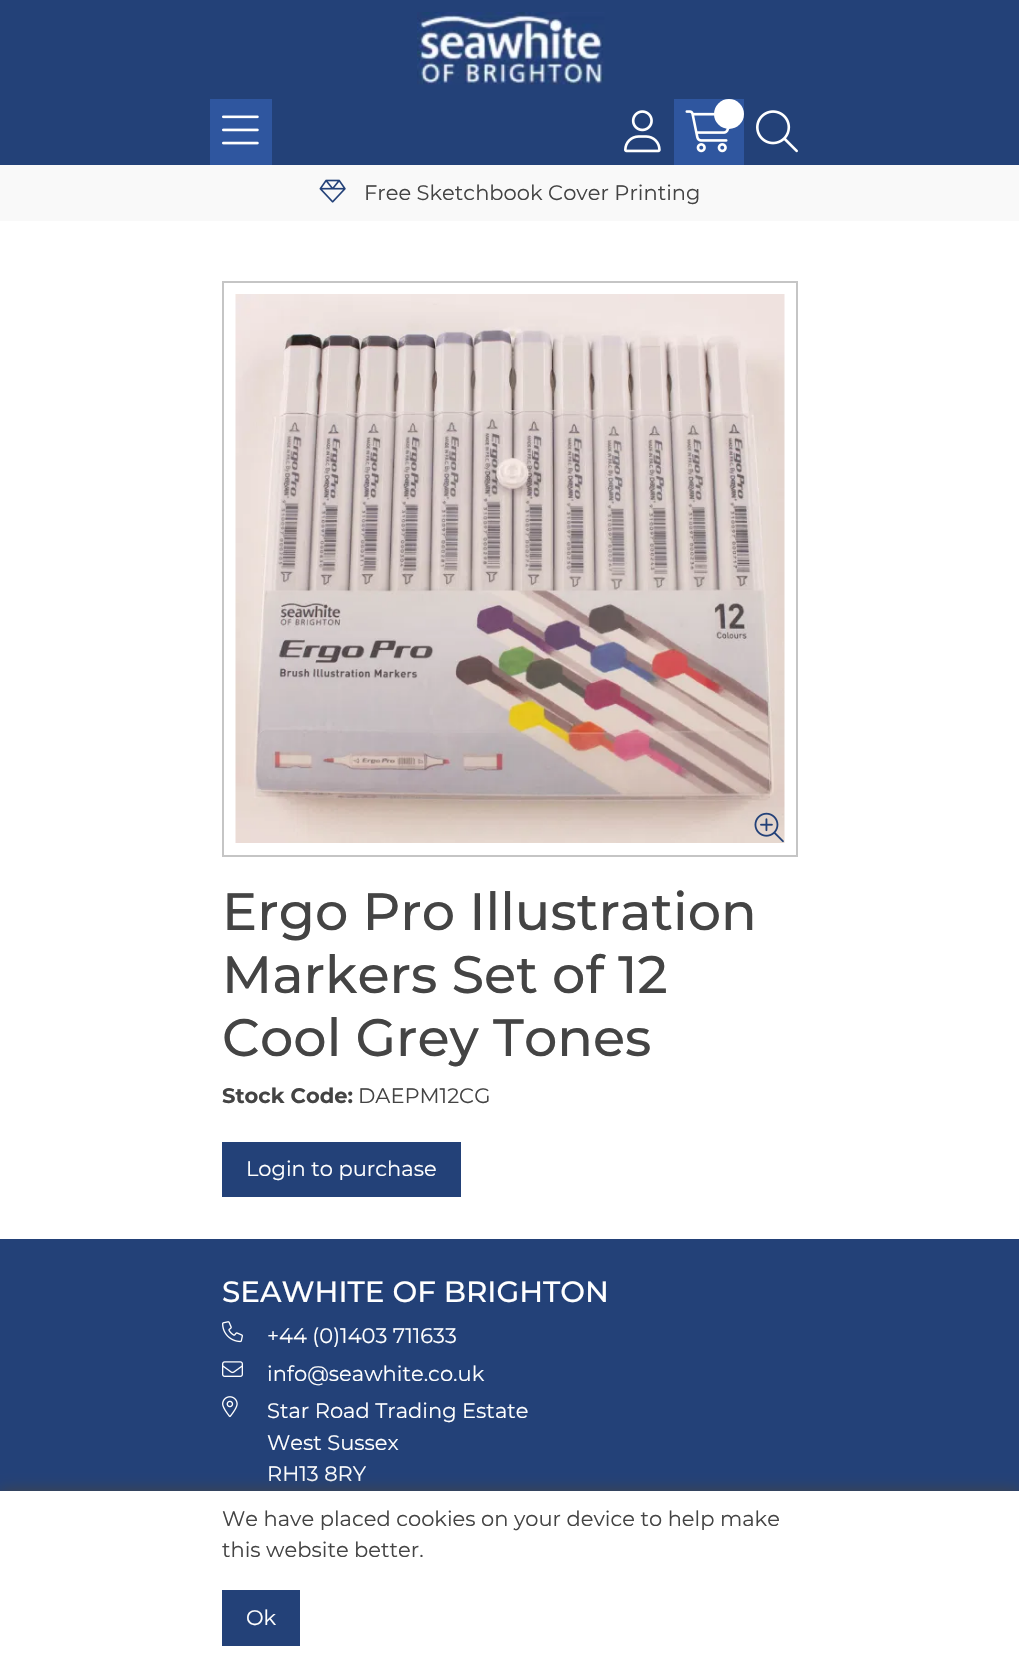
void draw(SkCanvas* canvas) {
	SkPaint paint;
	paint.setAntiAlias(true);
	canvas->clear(0xffffffff);
	paint.setColor(0xff234178);
	canvas->drawRect(SkRect::MakeXYWH(0, 0, 1019, 165), paint);
	canvas->drawImageRect(SkImages::DeferredFromEncodedData(SkData::MakeFromFileName("img1.png")), SkRect::MakeXYWH(417, 12, 188, 73), SkSamplingOptions());
	paint.setColor(0xff2f569f);
	canvas->drawRect(SkRect::MakeXYWH(210, 99, 62, 66), paint);
	canvas->drawImageRect(SkImages::DeferredFromEncodedData(SkData::MakeFromFileName("img2.png")), SkRect::MakeXYWH(222, 115, 37, 30), SkSamplingOptions());
	canvas->drawImageRect(SkImages::DeferredFromEncodedData(SkData::MakeFromFileName("img3.png")), SkRect::MakeXYWH(624, 110, 37, 43), SkSamplingOptions());
	canvas->drawRect(SkRect::MakeXYWH(674, 99, 70, 66), paint);
	canvas->drawImageRect(SkImages::DeferredFromEncodedData(SkData::MakeFromFileName("img4.png")), SkRect::MakeXYWH(685, 110, 45, 43), SkSamplingOptions());
	paint.setColor(0xffffffff);
	canvas->drawCircle(729, 114, 15, paint);
	canvas->drawImageRect(SkImages::DeferredFromEncodedData(SkData::MakeFromFileName("img5.png")), SkRect::MakeXYWH(756, 110, 42, 43), SkSamplingOptions());
	paint.setColor(0xfff9f9f9);
	canvas->drawRect(SkRect::MakeXYWH(0, 165, 1019, 56), paint);
	canvas->drawImageRect(SkImages::DeferredFromEncodedData(SkData::MakeFromFileName("img6.png")), SkRect::MakeXYWH(319, 179, 27, 24), SkSamplingOptions());
	SkFont f1(fontMgr->matchFamilyStyle("Montserrat", SkFontStyle(100, SkFontStyle::kNormal_Width, SkFontStyle::kUpright_Slant)), 21);
	f1.setSubpixel(true);
	paint.setColor(0xff444444);
	canvas->drawString("Free Sketchbook Cover Printing", 364, 200, f1, paint);
	paint.setStroke(true);
	paint.setStrokeWidth(2);
	paint.setColor(0xffc5c5c5);
	canvas->drawRect(SkRect::MakeXYWH(223, 282, 574, 574), paint);
	canvas->drawImageRect(SkImages::DeferredFromEncodedData(SkData::MakeFromFileName("img7.png")), SkRect::MakeXYWH(235, 294, 550, 549), SkSamplingOptions());
	canvas->drawImageRect(SkImages::DeferredFromEncodedData(SkData::MakeFromFileName("img8.png")), SkRect::MakeXYWH(754, 812, 30, 31), SkSamplingOptions());
	SkFont f2(fontMgr->matchFamilyStyle("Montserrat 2", SkFontStyle(100, SkFontStyle::kNormal_Width, SkFontStyle::kUpright_Slant)), 52.5);
	f2.setSubpixel(true);
	paint.setStroke(false);
	paint.setColor(0xff444444);
	canvas->drawString("Ergo Pro Illustration", 222, 930, f2, paint);
	canvas->drawString("Markers Set of 12", 222, 993, f2, paint);
	canvas->drawString("Cool Grey Tones", 222, 1056, f2, paint);
	SkFont f3(fontMgr->matchFamilyStyle("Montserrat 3", SkFontStyle(100, SkFontStyle::kNormal_Width, SkFontStyle::kUpright_Slant)), 21);
	f3.setSubpixel(true);
	canvas->drawString("Stock Code:", 222, 1103, f3, paint);
	canvas->drawString("DAEPM12CG", 358, 1103, f1, paint);
	paint.setColor(0xff234178);
	canvas->drawRect(SkRect::MakeXYWH(222, 1142, 239, 55), paint);
	paint.setColor(0xffffffff);
	canvas->drawString("Login to purchase", 246, 1176, f1, paint);
	paint.setColor(0xff234178);
	canvas->drawRect(SkRect::MakeXYWH(0, 1239, 1019, 252), paint);
	SkFont f4(fontMgr->matchFamilyStyle("Montserrat 2", SkFontStyle(100, SkFontStyle::kNormal_Width, SkFontStyle::kUpright_Slant)), 29.4);
	f4.setSubpixel(true);
	paint.setColor(0xffffffff);
	canvas->drawString("SEAWHITE OF BRIGHTON", 222, 1302, f4, paint);
	canvas->drawImageRect(SkImages::DeferredFromEncodedData(SkData::MakeFromFileName("img9.png")), SkRect::MakeXYWH(222, 1321, 21, 22), SkSamplingOptions());
	canvas->drawString("+44 (0)1403 711633", 267, 1343, f1, paint);
	canvas->drawImageRect(SkImages::DeferredFromEncodedData(SkData::MakeFromFileName("img10.png")), SkRect::MakeXYWH(222, 1361, 21, 16), SkSamplingOptions());
	canvas->drawString("info@seawhite.co.uk", 267, 1381, f1, paint);
	canvas->drawImageRect(SkImages::DeferredFromEncodedData(SkData::MakeFromFileName("img11.png")), SkRect::MakeXYWH(222, 1396, 16, 22), SkSamplingOptions());
	canvas->drawString("Star Road Trading Estate", 267, 1418, f1, paint);
	canvas->drawString("West Sussex", 267, 1450, f1, paint);
	canvas->drawString("RH13 8RY", 267, 1481, f1, paint);
	paint.setColor(0xff444444);
	paint.setMaskFilter(SkMaskFilter::MakeBlur(kNormal_SkBlurStyle, 7.5));
	canvas->drawRect(SkRect::MakeXYWH(0, 1491, 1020, 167), paint);
	paint.setMaskFilter(nullptr);
	paint.setColor(0xffffffff);
	canvas->drawRect(SkRect::MakeXYWH(0, 1491, 1019, 166), paint);
	paint.setColor(0xff444444);
	canvas->drawString("We have placed cookies on your device to help make", 222, 1526, f1, paint);
	canvas->drawString("this website better.", 222, 1557, f1, paint);
	paint.setColor(0xff234178);
	canvas->drawRect(SkRect::MakeXYWH(222, 1590, 78, 56), paint);
	paint.setColor(0xffffffff);
	canvas->drawString("Ok", 246, 1625, f1, paint);
}
